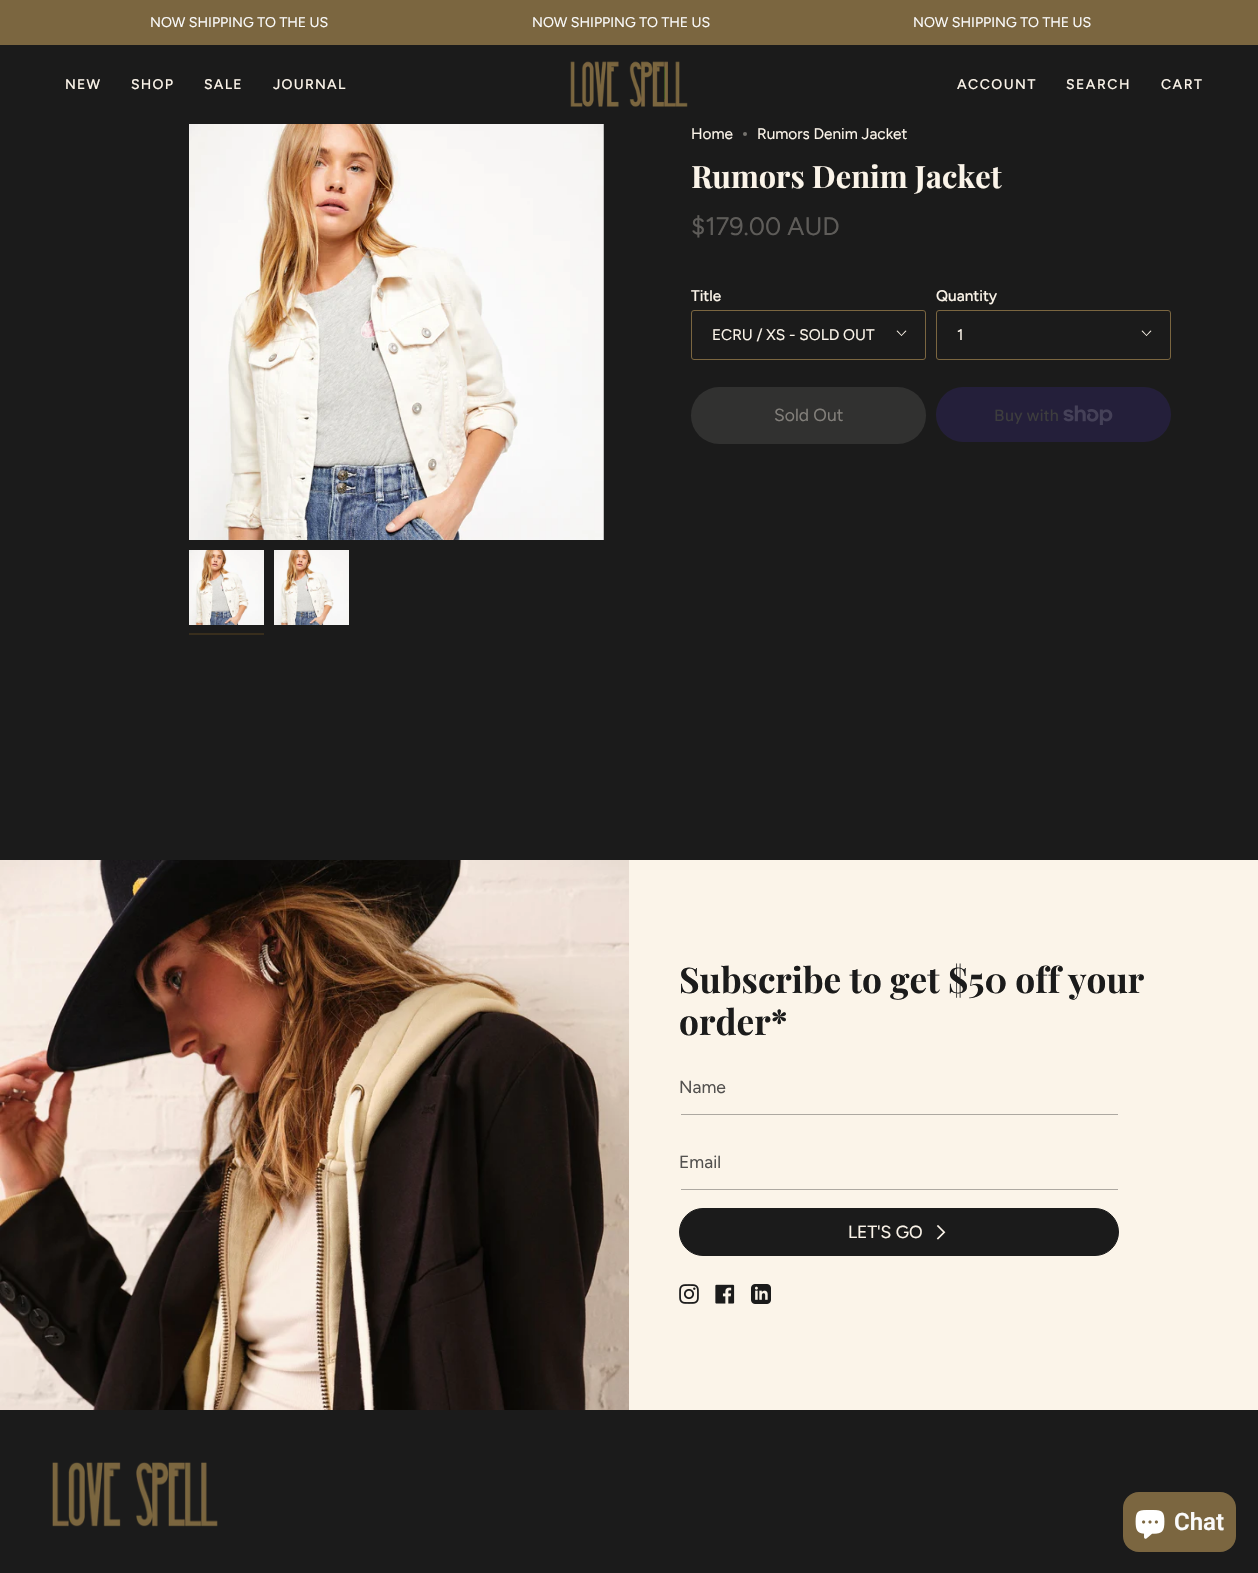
void draw(SkCanvas* canvas) {
	SkPaint paint;
	paint.setAntiAlias(true);
	auto spacedText = [&](const char* s, float x, float y, const SkFont& font, const SkPaint& ink, float letter, float word) {
		std::vector<SkGlyphID> glyphs(font.countText(s, strlen(s), SkTextEncoding::kUTF8));
		std::vector<float> xs(glyphs.size());
		font.textToGlyphs(s, strlen(s), SkTextEncoding::kUTF8, glyphs);
		font.getXPos(glyphs, xs, x);
		float extra = 0;
		for (size_t i = 0; i < glyphs.size(); i++) {
			xs[i] += extra;
			extra += letter + word * (glyphs[i] == font.unicharToGlyph(' '));
		}
		canvas->drawTextBlob(SkTextBlob::MakeFromPosHGlyphs(glyphs, xs, y, font), 0, 0, ink);
	};
	auto svgPath = [&](const char* data, bool evenOdd = false) {
		SkPath result = *SkParsePath::FromSVGString(data);
		if (evenOdd) result.setFillType(SkPathFillType::kEvenOdd);
		return result;
	};
	canvas->clear(0xff1b1b1b);
	paint.setColor(0xff7b6640);
	canvas->drawRect(SkRect::MakeXYWH(0, 0, 1258, 45), paint);
	SkFont f1(fontMgr->matchFamilyStyle("Figtree", SkFontStyle::Normal()), 14.1);
	f1.setSubpixel(true);
	paint.setColor(0xfffafafa);
	canvas->drawString("NOW SHIPPING TO THE US", 150, 27, f1, paint);
	canvas->drawString("NOW SHIPPING TO THE US", 532, 27, f1, paint);
	canvas->drawString("NOW SHIPPING TO THE US", 913, 27, f1, paint);
	SkFont f2(fontMgr->matchFamilyStyle("Figtree", SkFontStyle(500, SkFontStyle::kNormal_Width, SkFontStyle::kUpright_Slant)), 14);
	f2.setSubpixel(true);
	paint.setColor(0xfffbf4e9);
	spacedText("NEW", 65, 89, f2, paint, 1.25, 0);
	spacedText("SHOP", 131, 89, f2, paint, 1.25, 0);
	spacedText("SALE", 204, 89, f2, paint, 1.25, 0);
	spacedText("JOURNAL", 273, 89, f2, paint, 1.25, 0);
	canvas->drawImageRect(SkImages::DeferredFromEncodedData(SkData::MakeFromFileName("img1.png")), SkRect::MakeXYWH(570, 61, 118, 46), SkSamplingOptions());
	spacedText("ACCOUNT", 957, 89, f2, paint, 1.5, 0);
	spacedText("SEARCH", 1066, 89, f2, paint, 1.5, 0);
	spacedText("CART", 1161, 89, f2, paint, 1.5, 0);
	canvas->drawImageRect(SkImages::DeferredFromEncodedData(SkData::MakeFromFileName("img2.png")), SkRect::MakeXYWH(189, 124, 415, 416), SkSamplingOptions());
	canvas->drawImageRect(SkImages::DeferredFromEncodedData(SkData::MakeFromFileName("img3.png")), SkRect::MakeXYWH(189, 550, 75, 75), SkSamplingOptions());
	paint.setColor(0xff382e1d);
	canvas->drawRect(SkRect::MakeXYWH(189, 633, 75, 2), paint);
	canvas->drawImageRect(SkImages::DeferredFromEncodedData(SkData::MakeFromFileName("img3.png")), SkRect::MakeXYWH(274, 550, 75, 75), SkSamplingOptions());
	SkFont f3(fontMgr->matchFamilyStyle("Figtree", SkFontStyle::Normal()), 15.4);
	f3.setSubpixel(true);
	paint.setColor(0xfffbf4e9);
	canvas->drawString("Home", 691, 139, f3, paint);
	paint.setColor(0xff75726d);
	canvas->drawCircle(745, 134, 2, paint);
	paint.setColor(0xfffbf4e9);
	canvas->drawString("Rumors Denim Jacket", 757, 139, f3, paint);
	SkFont f4(fontMgr->matchFamilyStyle("Playfair Display", SkFontStyle::Bold()), 30.75);
	f4.setSubpixel(true);
	canvas->drawString("Rumors Denim Jacket", 691, 188, f4, paint);
	SkFont f5(fontMgr->matchFamilyStyle("Figtree", SkFontStyle::Normal()), 25.25);
	f5.setSubpixel(true);
	paint.setColor(0xff5e5c59);
	canvas->drawString("$179.00 AUD", 691, 235, f5, paint);
	SkFont f6(fontMgr->matchFamilyStyle("Figtree", SkFontStyle(500, SkFontStyle::kNormal_Width, SkFontStyle::kUpright_Slant)), 15.4);
	f6.setSubpixel(true);
	paint.setColor(0xfffbf4e9);
	canvas->drawString("Title", 691, 301, f6, paint);
	paint.setStroke(true);
	paint.setStrokeWidth(1);
	paint.setColor(0xff7b6640);
	canvas->drawRoundRect(SkRect::MakeXYWH(691.5, 310.5, 234, 49), 2.5, 2.5, paint);
	paint.setStroke(false);
	paint.setColor(0xfffbf4e9);
	canvas->drawString("ECRU / XS - SOLD OUT", 712, 340, f3, paint);
	canvas->drawPath(svgPath("M901 335.5L905.5 330.5L906.5 331L901.5 336Z"), paint);
	canvas->drawPath(svgPath("M896.5 331L897.5 330.5L902 335.5L901.5 336Z"), paint);
	canvas->drawString("Quantity", 936, 301, f6, paint);
	paint.setStroke(true);
	paint.setColor(0xff7b6640);
	canvas->drawRoundRect(SkRect::MakeXYWH(936.5, 310.5, 234, 49), 2.5, 2.5, paint);
	paint.setStroke(false);
	paint.setColor(0xfffbf4e9);
	canvas->drawString("1", 957, 340, f3, paint);
	canvas->drawPath(svgPath("M1146 335.5L1150.5 330.5L1151.5 331L1146.5 336Z"), paint);
	canvas->drawPath(svgPath("M1141.5 331L1142.5 330.5L1147 335.5L1146.5 336Z"), paint);
	paint.setColor(0xff313130);
	canvas->drawRoundRect(SkRect::MakeXYWH(691, 387, 235, 57), 28.5, 28.5, paint);
	SkFont f7(fontMgr->matchFamilyStyle("Figtree", SkFontStyle::Normal()), 17.5);
	f7.setSubpixel(true);
	paint.setColor(0xff827f7a);
	canvas->drawString("Sold Out", 774, 421, f7, paint);
	paint.setColor(0xff241f3a);
	canvas->drawRoundRect(SkRect::MakeXYWH(936, 387, 235, 55), 27.5, 27.5, paint);
	SkFont f8(fontMgr->matchFamilyStyle("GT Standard", SkFontStyle::Normal()), 16);
	f8.setSubpixel(true);
	paint.setColor(0xff3d3d3d);
	canvas->drawString("Buy with", 994, 421, f8, paint);
	canvas->drawImageRect(SkImages::DeferredFromEncodedData(SkData::MakeFromFileName("img4.png")), SkRect::MakeXYWH(1063, 405, 50, 20), SkSamplingOptions());
	canvas->drawImageRect(SkImages::DeferredFromEncodedData(SkData::MakeFromFileName("img5.png")), SkRect::MakeXYWH(0, 860, 629, 550), SkSamplingOptions());
	paint.setColor(0xfffbf4e9);
	canvas->drawRect(SkRect::MakeXYWH(629, 860, 629, 550), paint);
	SkFont f9(fontMgr->matchFamilyStyle("Playfair Display", SkFontStyle::Bold()), 35.25);
	f9.setSubpixel(true);
	paint.setColor(0xff1b1b1b);
	canvas->drawString("Subscribe to get $50 off your", 679, 993, f9, paint);
	canvas->drawString("order*", 679, 1035, f9, paint);
	paint.setColor(0xffada8a1);
	canvas->drawRect(SkRect::MakeXYWH(681, 1114, 437, 1), paint);
	paint.setColor(0xff53514f);
	canvas->drawString("Name", 679, 1093, f7, paint);
	paint.setColor(0xffada8a1);
	canvas->drawRect(SkRect::MakeXYWH(681, 1189, 437, 1), paint);
	paint.setColor(0xff53514f);
	canvas->drawString("Email", 679, 1168, f7, paint);
	paint.setColor(0xff1b1b1b);
	canvas->drawRoundRect(SkRect::MakeXYWH(679.5, 1208.5, 439, 47), 23.5, 23.5, paint);
	paint.setStroke(true);
	canvas->drawRoundRect(SkRect::MakeXYWH(679.5, 1208.5, 439, 47), 23.5, 23.5, paint);
	paint.setStroke(false);
	paint.setColor(0xfffbf4e9);
	canvas->drawString("LET'S GO", 848, 1238, f7, paint);
	canvas->drawImageRect(SkImages::DeferredFromEncodedData(SkData::MakeFromFileName("img6.png")), SkRect::MakeXYWH(936, 1225, 10, 15), SkSamplingOptions());
	canvas->drawImageRect(SkImages::DeferredFromEncodedData(SkData::MakeFromFileName("img7.png")), SkRect::MakeXYWH(679, 1284, 20, 20), SkSamplingOptions());
	canvas->drawImageRect(SkImages::DeferredFromEncodedData(SkData::MakeFromFileName("img8.png")), SkRect::MakeXYWH(715, 1284, 20, 20), SkSamplingOptions());
	canvas->drawImageRect(SkImages::DeferredFromEncodedData(SkData::MakeFromFileName("img9.png")), SkRect::MakeXYWH(751, 1284, 20, 20), SkSamplingOptions());
	canvas->drawImageRect(SkImages::DeferredFromEncodedData(SkData::MakeFromFileName("img10.png")), SkRect::MakeXYWH(52, 1462, 166, 65), SkSamplingOptions());
	paint.setColor(0xff7b6640);
	canvas->drawRoundRect(SkRect::MakeXYWH(1123, 1492, 113, 60), 16, 16, paint);
	canvas->drawImageRect(SkImages::DeferredFromEncodedData(SkData::MakeFromFileName("img11.png")), SkRect::MakeXYWH(1135, 1510, 30, 29), SkSamplingOptions());
	SkFont f10(fontMgr->matchFamilyStyle("Roboto", SkFontStyle(600, SkFontStyle::kNormal_Width, SkFontStyle::kUpright_Slant)), 24);
	f10.setSubpixel(true);
	paint.setColor(0xfffafafa);
	canvas->drawString("Chat", 1174, 1530, f10, paint);
}
